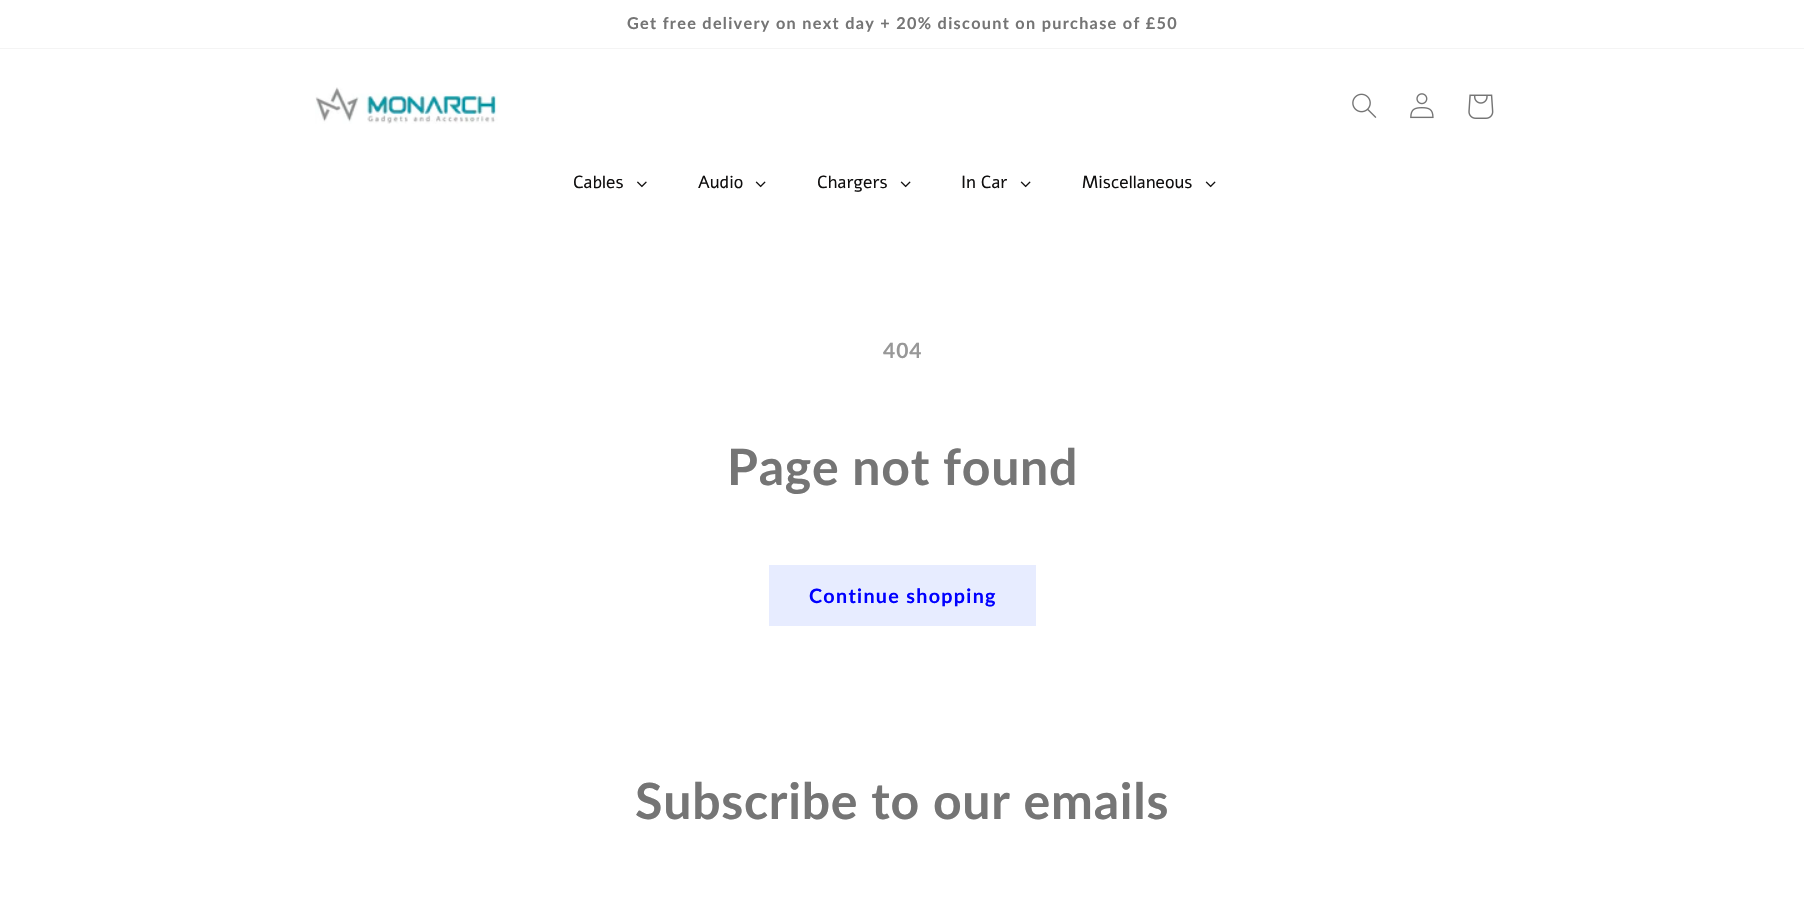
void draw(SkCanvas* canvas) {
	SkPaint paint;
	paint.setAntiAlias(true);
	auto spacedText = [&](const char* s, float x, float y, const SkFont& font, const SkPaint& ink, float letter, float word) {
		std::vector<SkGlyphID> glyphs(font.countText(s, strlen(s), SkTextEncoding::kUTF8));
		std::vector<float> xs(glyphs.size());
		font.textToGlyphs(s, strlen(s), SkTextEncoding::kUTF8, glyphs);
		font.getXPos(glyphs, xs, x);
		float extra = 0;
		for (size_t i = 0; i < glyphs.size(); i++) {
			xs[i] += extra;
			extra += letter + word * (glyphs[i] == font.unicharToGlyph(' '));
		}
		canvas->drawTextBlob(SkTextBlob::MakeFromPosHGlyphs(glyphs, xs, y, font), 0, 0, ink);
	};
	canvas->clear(0xffffffff);
	paint.setColor(0xfff4f4f4);
	canvas->drawRect(SkRect::MakeXYWH(0, 48, 1804, 1), paint);
	SkFont f1(fontMgr->matchFamilyStyle("Lato", SkFontStyle::Bold()), 16.25);
	f1.setSubpixel(true);
	paint.setColor(0xff757575);
	spacedText("Get free delivery on next day + 20% discount on purchase of £50", 627, 29, f1, paint, 1.3, 0);
	canvas->drawImageRect(SkImages::DeferredFromEncodedData(SkData::MakeFromFileName("img1.png")), SkRect::MakeXYWH(315, 87, 185, 37), SkSamplingOptions());
	canvas->drawImageRect(SkImages::DeferredFromEncodedData(SkData::MakeFromFileName("img2.png")), SkRect::MakeXYWH(1352, 93, 25, 25), SkSamplingOptions());
	canvas->drawImageRect(SkImages::DeferredFromEncodedData(SkData::MakeFromFileName("img3.png")), SkRect::MakeXYWH(1410, 93, 24, 26), SkSamplingOptions());
	canvas->drawImageRect(SkImages::DeferredFromEncodedData(SkData::MakeFromFileName("img4.png")), SkRect::MakeXYWH(1468, 94, 26, 25), SkSamplingOptions());
	SkFont f2(fontMgr->matchFamilyStyle("Alef", SkFontStyle::Normal()), 17.5);
	f2.setSubpixel(true);
	paint.setColor(0xff100f0f);
	canvas->drawString("Cables", 573, 188, f2, paint);
	canvas->drawImageRect(SkImages::DeferredFromEncodedData(SkData::MakeFromFileName("img5.png")), SkRect::MakeXYWH(637, 181, 10, 7), SkSamplingOptions());
	canvas->drawString("Audio", 698, 188, f2, paint);
	canvas->drawImageRect(SkImages::DeferredFromEncodedData(SkData::MakeFromFileName("img6.png")), SkRect::MakeXYWH(755, 181, 11, 7), SkSamplingOptions());
	canvas->drawString("Chargers", 817, 188, f2, paint);
	canvas->drawImageRect(SkImages::DeferredFromEncodedData(SkData::MakeFromFileName("img6.png")), SkRect::MakeXYWH(900, 181, 11, 7), SkSamplingOptions());
	canvas->drawString("In Car", 961, 188, f2, paint);
	canvas->drawImageRect(SkImages::DeferredFromEncodedData(SkData::MakeFromFileName("img6.png")), SkRect::MakeXYWH(1020, 181, 11, 7), SkSamplingOptions());
	canvas->drawString("Miscellaneous", 1082, 188, f2, paint);
	canvas->drawImageRect(SkImages::DeferredFromEncodedData(SkData::MakeFromFileName("img6.png")), SkRect::MakeXYWH(1205, 181, 11, 7), SkSamplingOptions());
	SkFont f3(fontMgr->matchFamilyStyle("Lato", SkFontStyle::Bold()), 21);
	f3.setSubpixel(true);
	paint.setColor(0xff989898);
	spacedText("404", 883, 358, f3, paint, 1, 0);
	SkFont f4(fontMgr->matchFamilyStyle("Lato", SkFontStyle::Bold()), 50);
	f4.setSubpixel(true);
	paint.setColor(0xff757575);
	spacedText("Page not found", 727, 485, f4, paint, 0.75, 0);
	paint.setColor(0xffe7ecff);
	canvas->drawRect(SkRect::MakeXYWH(769, 565, 267, 61), paint);
	SkFont f5(fontMgr->matchFamilyStyle("Lato", SkFontStyle::Bold()), 19.75);
	f5.setSubpixel(true);
	paint.setColor(0xff0000ff);
	spacedText("Continue shopping", 809, 603, f5, paint, 1.3, 0);
	paint.setColor(0xff757575);
	spacedText("Subscribe to our emails", 635, 819, f4, paint, 0.75, 0);
}
